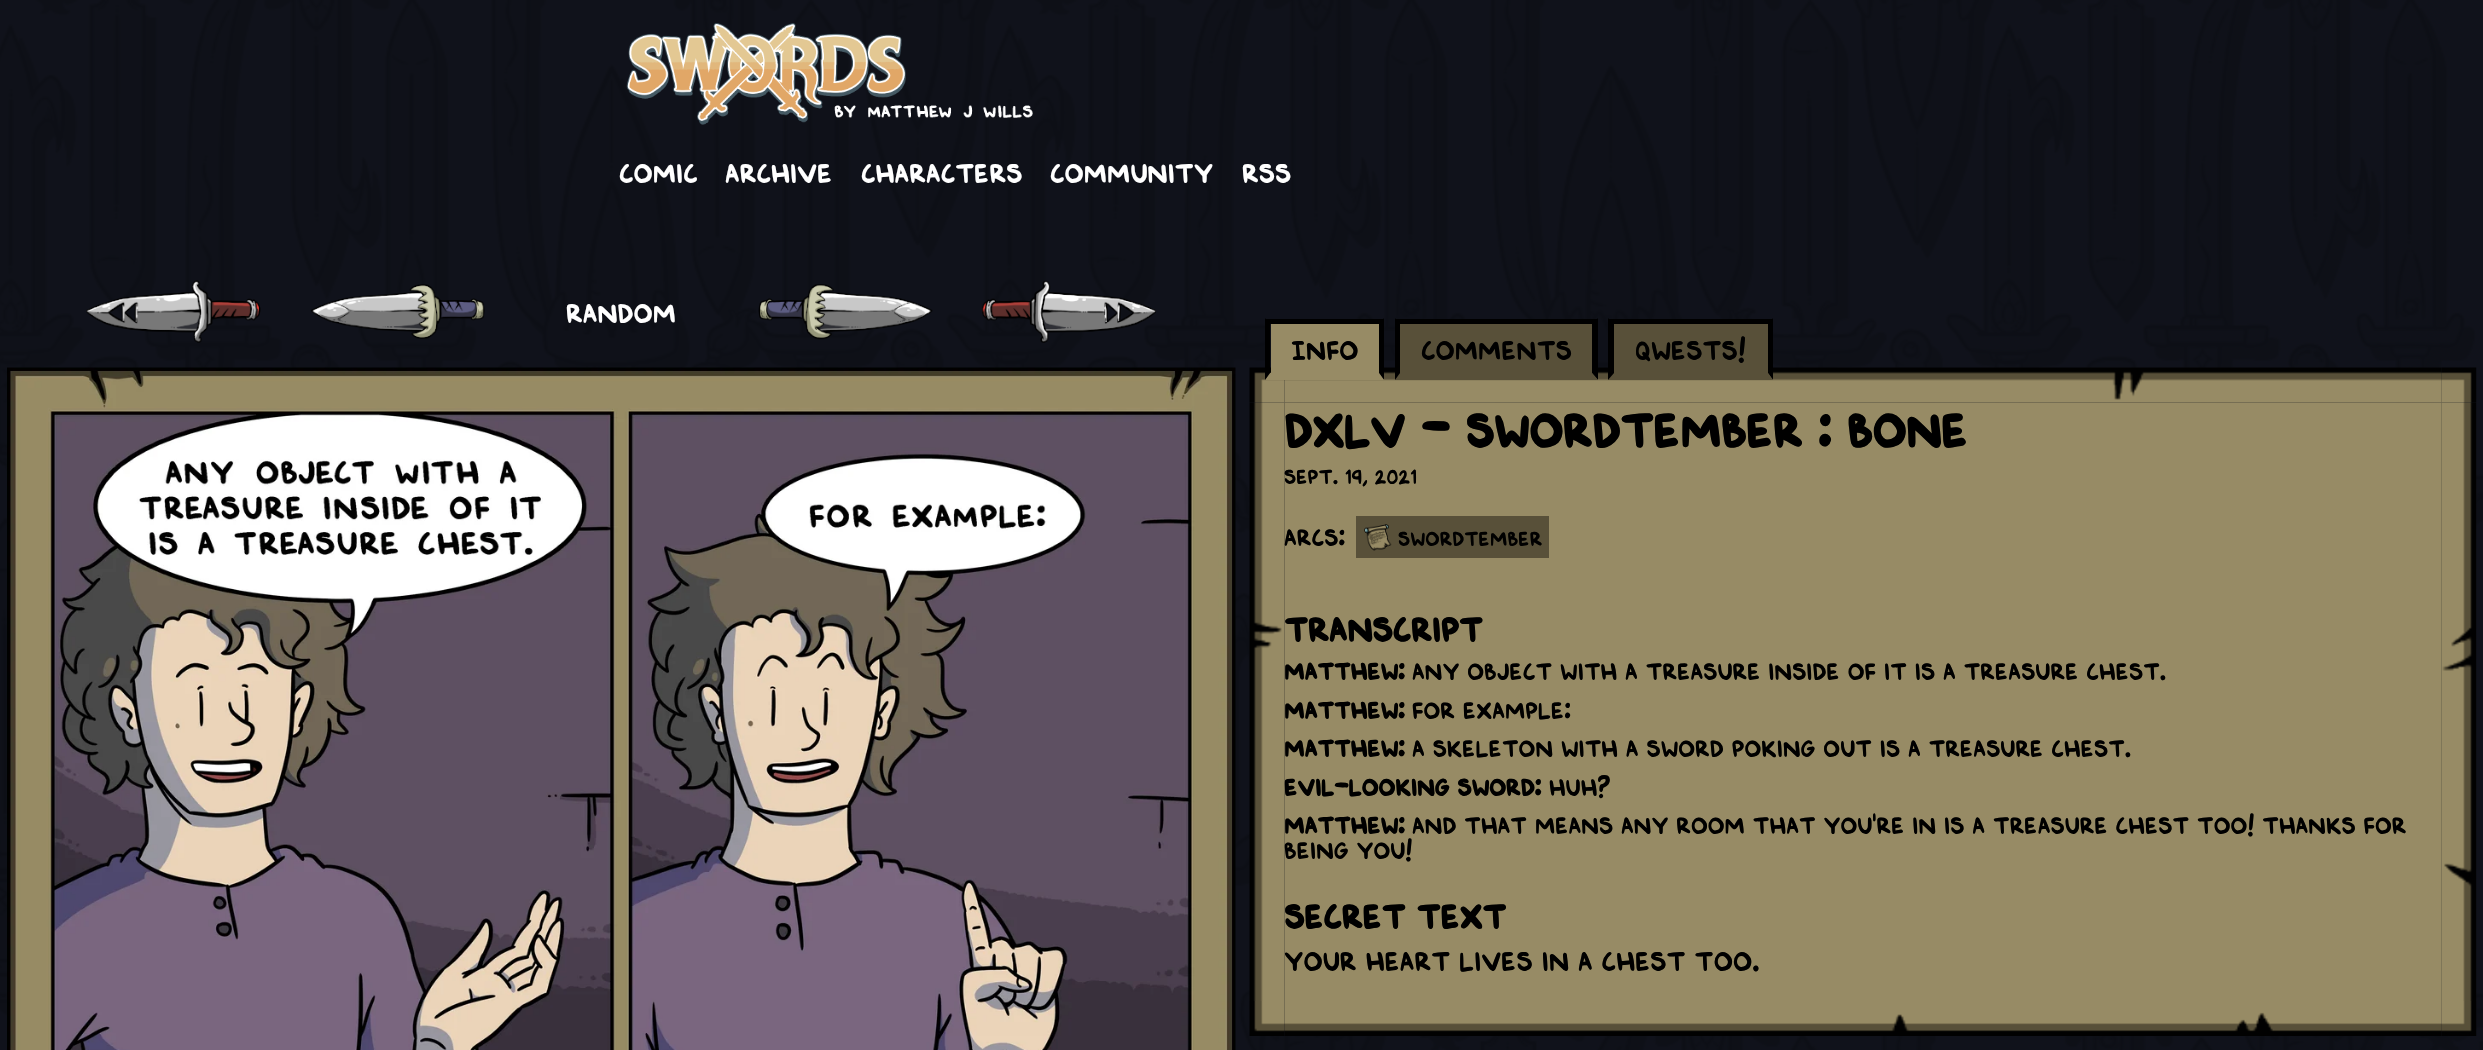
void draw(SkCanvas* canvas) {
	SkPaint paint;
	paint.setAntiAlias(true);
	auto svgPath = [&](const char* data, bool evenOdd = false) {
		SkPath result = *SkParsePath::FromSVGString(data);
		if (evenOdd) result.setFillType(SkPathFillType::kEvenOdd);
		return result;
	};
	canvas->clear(0xffffffff);
	canvas->drawImageRect(SkImages::DeferredFromEncodedData(SkData::MakeFromFileName("img1.png")), SkRect::MakeXYWH(0, 0, 2483, 1050), SkSamplingOptions());
	canvas->drawImageRect(SkImages::DeferredFromEncodedData(SkData::MakeFromFileName("img2.png")), SkRect::MakeXYWH(626, 23, 407, 102), SkSamplingOptions());
	SkFont f1(fontMgr->matchFamilyStyle("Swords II", SkFontStyle::Normal()), 28);
	f1.setSubpixel(true);
	paint.setColor(0xffffffff);
	canvas->drawString("Comic", 619, 183, f1, paint);
	canvas->drawString("Archive", 725, 183, f1, paint);
	canvas->drawString("Characters", 861, 183, f1, paint);
	canvas->drawString("Community", 1050, 183, f1, paint);
	canvas->drawString("RSS", 1242, 183, f1, paint);
	canvas->drawImageRect(SkImages::DeferredFromEncodedData(SkData::MakeFromFileName("img3.png")), SkRect::MakeXYWH(86, 280, 175, 63), SkSamplingOptions());
	canvas->drawImageRect(SkImages::DeferredFromEncodedData(SkData::MakeFromFileName("img4.png")), SkRect::MakeXYWH(311, 284, 174, 55), SkSamplingOptions());
	canvas->drawString("RANDOM", 566, 323, f1, paint);
	canvas->drawImageRect(SkImages::DeferredFromEncodedData(SkData::MakeFromFileName("img5.png")), SkRect::MakeXYWH(758, 284, 175, 56), SkSamplingOptions());
	canvas->drawImageRect(SkImages::DeferredFromEncodedData(SkData::MakeFromFileName("img6.png")), SkRect::MakeXYWH(982, 280, 174, 63), SkSamplingOptions());
	canvas->drawImageRect(SkImages::DeferredFromEncodedData(SkData::MakeFromFileName("img7.png")), SkRect::MakeXYWH(7, 367, 1229, 683), SkSamplingOptions());
	canvas->drawImageRect(SkImages::DeferredFromEncodedData(SkData::MakeFromFileName("img8.png")), SkRect::MakeXYWH(1249, 367, 1228, 669), SkSamplingOptions());
	paint.setColor(0xff978b65);
	canvas->drawRect(SkRect::MakeXYWH(1271, 324, 108, 49), paint);
	paint.setColor(0xff000000);
	canvas->drawRect(SkRect::MakeXYWH(1265, 319, 119, 5), paint);
	canvas->drawPath(svgPath("M1384 318V380L1379 373V324Z"), paint);
	paint.setColor(0xff978b65);
	canvas->drawPath(svgPath("M1384 380H1265L1270 373H1379Z"), paint);
	paint.setColor(0xff000000);
	canvas->drawPath(svgPath("M1265 380V318L1270 324V373Z"), paint);
	canvas->drawString("Info", 1291, 360, f1, paint);
	paint.setColor(0xff585039);
	canvas->drawRect(SkRect::MakeXYWH(1400, 324, 192, 49), paint);
	paint.setColor(0xff000000);
	canvas->drawRect(SkRect::MakeXYWH(1395, 319, 203, 5), paint);
	canvas->drawPath(svgPath("M1598 318V380L1592 373V324Z"), paint);
	paint.setColor(0xff585039);
	canvas->drawPath(svgPath("M1598 380H1395L1400 373H1592Z"), paint);
	paint.setColor(0xff000000);
	canvas->drawPath(svgPath("M1395 380V318L1400 324V373Z"), paint);
	canvas->drawString("Comments", 1421, 360, f1, paint);
	paint.setColor(0xff585039);
	canvas->drawRect(SkRect::MakeXYWH(1614, 324, 154, 49), paint);
	paint.setColor(0xff000000);
	canvas->drawRect(SkRect::MakeXYWH(1608, 319, 165, 5), paint);
	canvas->drawPath(svgPath("M1773 318V380L1768 373V324Z"), paint);
	paint.setColor(0xff585039);
	canvas->drawPath(svgPath("M1773 380H1608L1614 373H1768Z"), paint);
	paint.setColor(0xff000000);
	canvas->drawPath(svgPath("M1608 380V318L1614 324V373Z"), paint);
	canvas->drawString("Qwests!", 1635, 360, f1, paint);
	SkFont f2(fontMgr->matchFamilyStyle("Swords II", SkFontStyle::Bold()), 49);
	f2.setSubpixel(true);
	canvas->drawString("DXLV - Swordtember : Bone", 1284, 448, f2, paint);
	SkFont f3(fontMgr->matchFamilyStyle("Swords II", SkFontStyle::Normal()), 21);
	f3.setSubpixel(true);
	canvas->drawString("Sept. 19, 2021", 1284, 484, f3, paint);
	SkFont f4(fontMgr->matchFamilyStyle("Swords II", SkFontStyle::Normal()), 24.5);
	f4.setSubpixel(true);
	canvas->drawString("Arcs:", 1284, 546, f4, paint);
	paint.setColor(0xff585039);
	canvas->drawRect(SkRect::MakeXYWH(1356, 516, 193, 42), paint);
	canvas->drawImageRect(SkImages::DeferredFromEncodedData(SkData::MakeFromFileName("img9.png")), SkRect::MakeXYWH(1364, 524, 28, 27), SkSamplingOptions());
	paint.setColor(0xff000000);
	canvas->drawString("Swordtember", 1398, 546, f3, paint);
	SkFont f5(fontMgr->matchFamilyStyle("Swords II", SkFontStyle::Bold()), 35);
	f5.setSubpixel(true);
	canvas->drawString("Transcript", 1284, 642, f5, paint);
	SkFont f6(fontMgr->matchFamilyStyle("Swords II", SkFontStyle::Bold()), 24.5);
	f6.setSubpixel(true);
	canvas->drawString("Matthew:", 1284, 680, f6, paint);
	canvas->drawString("Any object with a treasure inside of it is a treasure chest.", 1412, 680, f4, paint);
	canvas->drawString("Matthew:", 1284, 719, f6, paint);
	canvas->drawString("For example:", 1412, 719, f4, paint);
	canvas->drawString("Matthew:", 1284, 757, f6, paint);
	canvas->drawString("A skeleton with a sword poking out is a treasure chest.", 1412, 757, f4, paint);
	canvas->drawString("Evil-looking sword:", 1284, 796, f6, paint);
	canvas->drawString("HUH?", 1549, 796, f4, paint);
	canvas->drawString("Matthew:", 1284, 834, f6, paint);
	canvas->drawString("And that means any room that you're in is a treasure chest too! Thanks for", 1412, 834, f4, paint);
	canvas->drawString("being you!", 1284, 859, f4, paint);
	canvas->drawString("Secret Text", 1284, 929, f5, paint);
	canvas->drawString("Your heart lives in a chest too.", 1284, 971, f1, paint);
}
